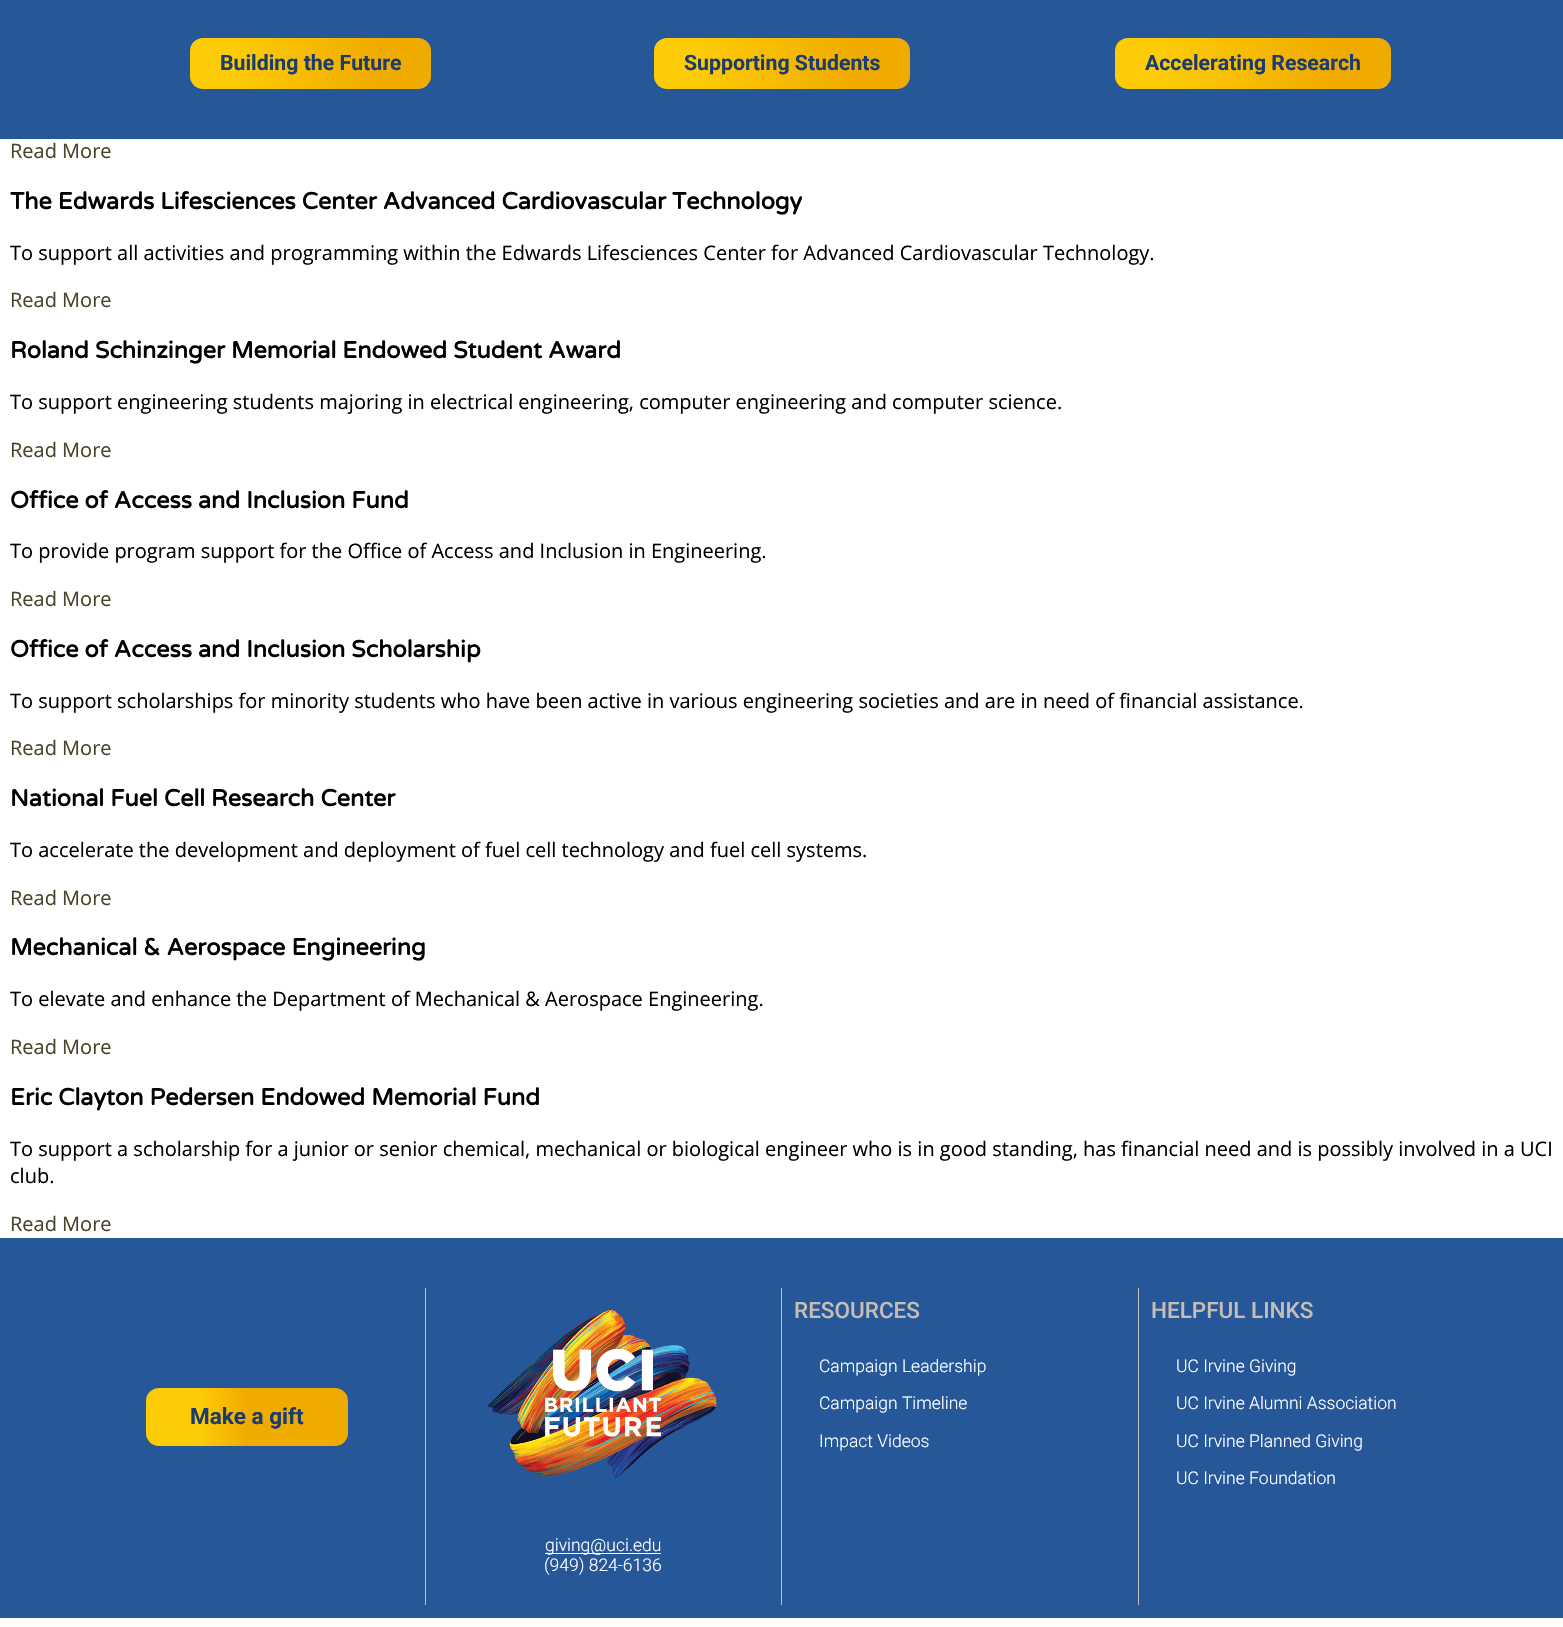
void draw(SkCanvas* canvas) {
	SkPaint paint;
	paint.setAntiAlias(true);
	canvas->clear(0xffffffff);
	paint.setColor(0xff255799);
	canvas->drawRect(SkRect::MakeXYWH(0, 0, 1563, 139), paint);
	{
		const SkColor colors[] = {0xfffecc07, 0xfff0ab00};
		const float stops[] = {0.16, 0.79};
		const SkPoint ends[] = {{190, 65}, {432, 61}};
		paint.setShader(SkGradientShader::MakeLinear(ends, colors, stops, 2, SkTileMode::kClamp));
		paint.setAlpha(255);
	}
	canvas->drawRoundRect(SkRect::MakeXYWH(190, 38, 241, 51), 13, 13, paint);
	SkFont f1(fontMgr->matchFamilyStyle("Roboto", SkFontStyle::Bold()), 21.25);
	f1.setSubpixel(true);
	paint.setShader(nullptr);
	paint.setColor(0xff1b3d6d);
	canvas->drawString("Building the Future", 220, 70, f1, paint);
	{
		const SkColor colors[] = {0xfffecc07, 0xfff0ab00};
		const float stops[] = {0.16, 0.79};
		const SkPoint ends[] = {{653, 65}, {910, 61}};
		paint.setShader(SkGradientShader::MakeLinear(ends, colors, stops, 2, SkTileMode::kClamp));
		paint.setAlpha(255);
	}
	canvas->drawRoundRect(SkRect::MakeXYWH(654, 38, 256, 51), 13, 13, paint);
	paint.setShader(nullptr);
	paint.setColor(0xff1b3d6d);
	canvas->drawString("Supporting Students", 684, 70, f1, paint);
	{
		const SkColor colors[] = {0xfffecc07, 0xfff0ab00};
		const float stops[] = {0.16, 0.79};
		const SkPoint ends[] = {{1115, 66}, {1392, 61}};
		paint.setShader(SkGradientShader::MakeLinear(ends, colors, stops, 2, SkTileMode::kClamp));
		paint.setAlpha(255);
	}
	canvas->drawRoundRect(SkRect::MakeXYWH(1115, 38, 276, 51), 13, 13, paint);
	paint.setShader(nullptr);
	paint.setColor(0xff1b3d6d);
	canvas->drawString("Accelerating Research", 1145, 70, f1, paint);
	SkFont f2(fontMgr->matchFamilyStyle("Open Sans", SkFontStyle::Normal()), 20);
	f2.setSubpixel(true);
	paint.setColor(0xff494329);
	canvas->drawString("Read More", 10, 158, f2, paint);
	SkFont f3(fontMgr->matchFamilyStyle("Varela Round", SkFontStyle::Bold()), 23.4);
	f3.setSubpixel(true);
	paint.setColor(0xff000000);
	canvas->drawString("The Edwards Lifesciences Center Advanced Cardiovascular Technology", 10, 209, f3, paint);
	canvas->drawString("To support all activities and programming within the Edwards Lifesciences Center for Advanced Cardiovascular Technology.", 10, 260, f2, paint);
	paint.setColor(0xff494329);
	canvas->drawString("Read More", 10, 307, f2, paint);
	paint.setColor(0xff000000);
	canvas->drawString("Roland Schinzinger Memorial Endowed Student Award", 10, 358, f3, paint);
	canvas->drawString("To support engineering students majoring in electrical engineering, computer engineering and computer science.", 10, 409, f2, paint);
	paint.setColor(0xff494329);
	canvas->drawString("Read More", 10, 457, f2, paint);
	paint.setColor(0xff000000);
	canvas->drawString("Office of Access and Inclusion Fund", 10, 508, f3, paint);
	canvas->drawString("To provide program support for the Office of Access and Inclusion in Engineering.", 10, 558, f2, paint);
	paint.setColor(0xff494329);
	canvas->drawString("Read More", 10, 606, f2, paint);
	paint.setColor(0xff000000);
	canvas->drawString("Office of Access and Inclusion Scholarship", 10, 657, f3, paint);
	canvas->drawString("To support scholarships for minority students who have been active in various engineering societies and are in need of financial assistance.", 10, 708, f2, paint);
	paint.setColor(0xff494329);
	canvas->drawString("Read More", 10, 755, f2, paint);
	paint.setColor(0xff000000);
	canvas->drawString("National Fuel Cell Research Center", 10, 806, f3, paint);
	canvas->drawString("To accelerate the development and deployment of fuel cell technology and fuel cell systems.", 10, 857, f2, paint);
	paint.setColor(0xff494329);
	canvas->drawString("Read More", 10, 905, f2, paint);
	paint.setColor(0xff000000);
	canvas->drawString("Mechanical & Aerospace Engineering", 10, 955, f3, paint);
	canvas->drawString("To elevate and enhance the Department of Mechanical & Aerospace Engineering.", 10, 1006, f2, paint);
	paint.setColor(0xff494329);
	canvas->drawString("Read More", 10, 1054, f2, paint);
	paint.setColor(0xff000000);
	canvas->drawString("Eric Clayton Pedersen Endowed Memorial Fund", 10, 1105, f3, paint);
	canvas->drawString("To support a scholarship for a junior or senior chemical, mechanical or biological engineer who is in good standing, has financial need and is possibly involved in a UCI", 10, 1156, f2, paint);
	canvas->drawString("club.", 10, 1183, f2, paint);
	paint.setColor(0xff494329);
	canvas->drawString("Read More", 10, 1231, f2, paint);
	paint.setColor(0xff255799);
	canvas->drawRect(SkRect::MakeXYWH(0, 1238, 1563, 380), paint);
	paint.setColor(0xffc6beb5);
	canvas->drawRect(SkRect::MakeXYWH(425, 1288, 1, 317), paint);
	{
		const SkColor colors[] = {0xfffecc07, 0xfff0ab00};
		const float stops[] = {0.26, 0.5};
		const SkPoint ends[] = {{146, 1417}, {348, 1417}};
		paint.setShader(SkGradientShader::MakeLinear(ends, colors, stops, 2, SkTileMode::kClamp));
		paint.setAlpha(255);
	}
	canvas->drawRoundRect(SkRect::MakeXYWH(146, 1388, 202, 58), 13, 13, paint);
	SkFont f4(fontMgr->matchFamilyStyle("Roboto", SkFontStyle::Bold()), 22.5);
	f4.setSubpixel(true);
	paint.setShader(nullptr);
	paint.setColor(0xff1b3d6d);
	canvas->drawString("Make a gift", 190, 1424, f4, paint);
	paint.setColor(0xffc6beb5);
	canvas->drawRect(SkRect::MakeXYWH(1138, 1288, 1, 317), paint);
	SkFont f5(fontMgr->matchFamilyStyle("Roboto", SkFontStyle(500, SkFontStyle::kNormal_Width, SkFontStyle::kUpright_Slant)), 22.5);
	f5.setSubpixel(true);
	canvas->drawString("RESOURCES", 794, 1318, f5, paint);
	SkFont f6(fontMgr->matchFamilyStyle("Roboto", SkFontStyle(300, SkFontStyle::kNormal_Width, SkFontStyle::kUpright_Slant)), 17.5);
	f6.setSubpixel(true);
	paint.setColor(0xffffffff);
	canvas->drawString("Campaign Leadership", 819, 1372, f6, paint);
	canvas->drawString("Campaign Timeline", 819, 1409, f6, paint);
	canvas->drawString("Impact Videos", 819, 1447, f6, paint);
	paint.setColor(0xffc6beb5);
	canvas->drawString("HELPFUL LINKS", 1151, 1318, f5, paint);
	paint.setColor(0xffffffff);
	canvas->drawString("UC Irvine Giving", 1176, 1372, f6, paint);
	canvas->drawString("UC Irvine Alumni Association", 1176, 1409, f6, paint);
	canvas->drawString("UC Irvine Planned Giving", 1176, 1447, f6, paint);
	canvas->drawString("UC Irvine Foundation", 1176, 1484, f6, paint);
	paint.setColor(0xffc6beb5);
	canvas->drawRect(SkRect::MakeXYWH(781, 1288, 1, 317), paint);
	canvas->drawImageRect(SkImages::DeferredFromEncodedData(SkData::MakeFromFileName("img1.png")), SkRect::MakeXYWH(487, 1310, 230, 172), SkSamplingOptions());
	paint.setColor(0xffffffff);
	canvas->drawRect(SkRect::MakeXYWH(545, 1553, 116, 1), paint);
	canvas->drawString("giving@uci.edu", 545, 1551, f6, paint);
	canvas->drawString("(949) 824-6136", 544, 1571, f6, paint);
}
